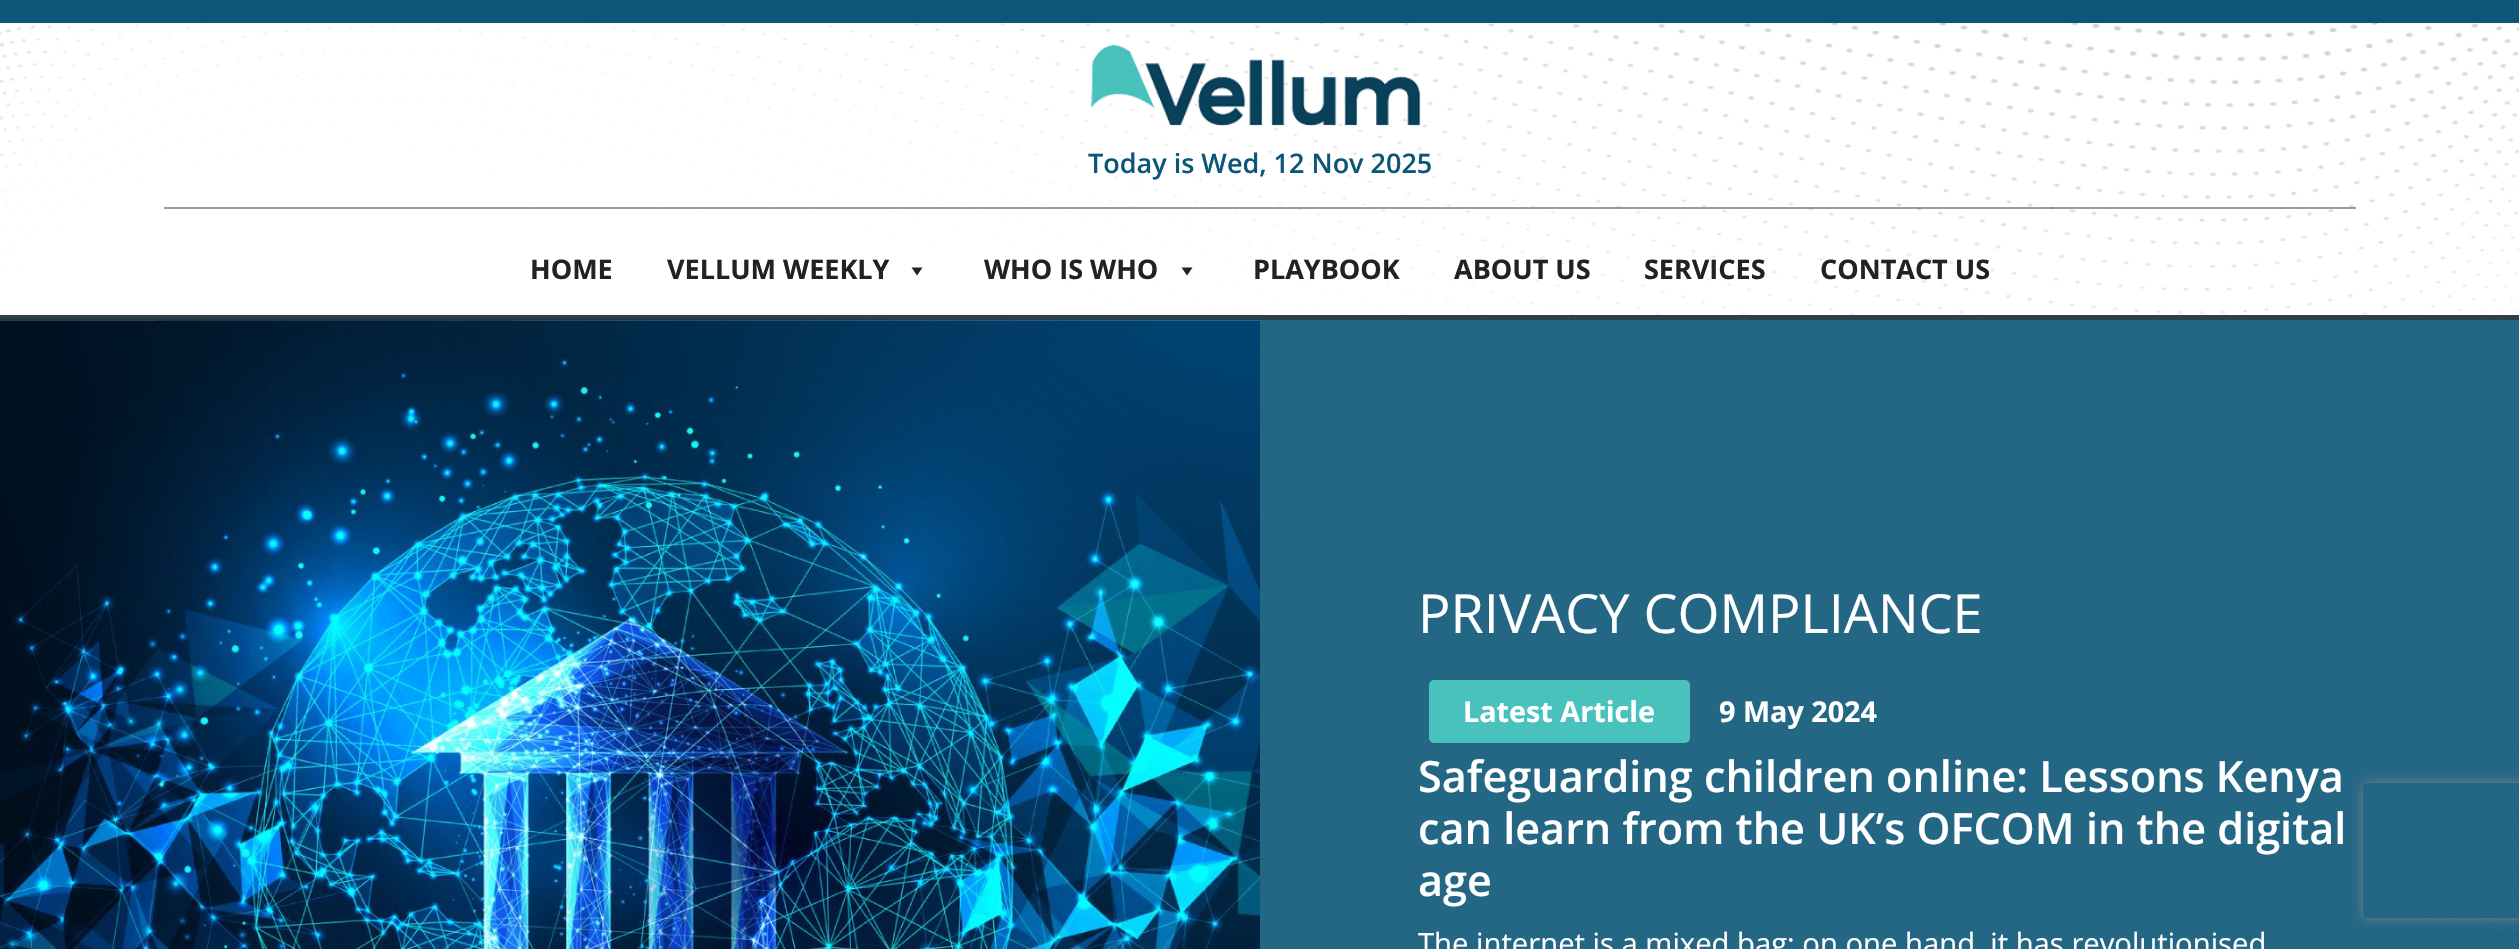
void draw(SkCanvas* canvas) {
	SkPaint paint;
	paint.setAntiAlias(true);
	auto svgPath = [&](const char* data, bool evenOdd = false) {
		SkPath result = *SkParsePath::FromSVGString(data);
		if (evenOdd) result.setFillType(SkPathFillType::kEvenOdd);
		return result;
	};
	canvas->clear(0xffffffff);
	paint.setColor(0xff0c5678);
	canvas->drawRect(SkRect::MakeXYWH(0, 0, 2519, 23), paint);
	canvas->drawImageRect(SkImages::DeferredFromEncodedData(SkData::MakeFromFileName("img1.png")), SkRect::MakeXYWH(0, 23, 2519, 926), SkSamplingOptions());
	paint.setColor(0xff2b404b);
	canvas->drawRect(SkRect::MakeXYWH(0, 315, 2519, 5), paint);
	canvas->drawImageRect(SkImages::DeferredFromEncodedData(SkData::MakeFromFileName("img2.png")), SkRect::MakeXYWH(1091, 45, 330, 81), SkSamplingOptions());
	SkFont f1(fontMgr->matchFamilyStyle("Open Sans", SkFontStyle(600, SkFontStyle::kNormal_Width, SkFontStyle::kUpright_Slant)), 27);
	f1.setSubpixel(true);
	paint.setColor(0xff0c5678);
	canvas->drawString("Today is Wed, 12 Nov 2025", 1088, 173, f1, paint);
	paint.setColor(0x802b404b);
	canvas->drawRect(SkRect::MakeXYWH(164, 207, 2192, 2), paint);
	paint.setColor(0x1affffff);
	canvas->drawRect(SkRect::MakeXYWH(1826, 227, 521, 62), paint);
	SkFont f2(fontMgr->matchFamilyStyle("Open Sans", SkFontStyle::Bold()), 27);
	f2.setSubpixel(true);
	paint.setColor(0xff222222);
	canvas->drawString("HOME", 530, 279, f2, paint);
	canvas->drawString("VELLUM WEEKLY", 667, 279, f2, paint);
	canvas->drawPath(svgPath("M922.5 267.5L917 275.5L911.5 267.5Z"), paint);
	canvas->drawString("WHO IS WHO", 984, 279, f2, paint);
	canvas->drawPath(svgPath("M1192.5 267.5L1187 275.5L1181.5 267.5Z"), paint);
	canvas->drawString("PLAYBOOK", 1253, 279, f2, paint);
	canvas->drawString("ABOUT US", 1454, 279, f2, paint);
	canvas->drawString("SERVICES", 1644, 279, f2, paint);
	canvas->drawString("CONTACT US", 1820, 279, f2, paint);
	canvas->drawImageRect(SkImages::DeferredFromEncodedData(SkData::MakeFromFileName("img3.png")), SkRect::MakeXYWH(0, 319, 1260, 630), SkSamplingOptions());
	paint.setColor(0xe60c5678);
	canvas->drawRect(SkRect::MakeXYWH(1260, 320, 1259, 629), paint);
	SkFont f3(fontMgr->matchFamilyStyle("Open Sans", SkFontStyle::Normal()), 54);
	f3.setSubpixel(true);
	paint.setColor(0xffffffff);
	canvas->drawString("PRIVACY COMPLIANCE", 1418, 633, f3, paint);
	paint.setColor(0xff49c1bd);
	canvas->drawRoundRect(SkRect::MakeXYWH(1429, 680, 261, 63), 5, 5, paint);
	SkFont f4(fontMgr->matchFamilyStyle("Open Sans", SkFontStyle::Bold()), 28.75);
	f4.setSubpixel(true);
	paint.setColor(0xffffffff);
	canvas->drawString("Latest Article", 1463, 722, f4, paint);
	canvas->drawString("9 May 2024", 1719, 722, f4, paint);
	SkFont f5(fontMgr->matchFamilyStyle("Open Sans", SkFontStyle(600, SkFontStyle::kNormal_Width, SkFontStyle::kUpright_Slant)), 43.2);
	f5.setSubpixel(true);
	canvas->drawString("Safeguarding children online: Lessons Kenya", 1418, 792, f5, paint);
	canvas->drawString("can learn from the UK’s OFCOM in the digital", 1418, 844, f5, paint);
	canvas->drawString("age", 1418, 896, f5, paint);
	SkFont f6(fontMgr->matchFamilyStyle("Open Sans", SkFontStyle::Normal()), 29.25);
	f6.setSubpixel(true);
	canvas->drawString("The internet is a mixed bag; on one hand, it has revolutionised", 1418, 954, f6, paint);
	canvas->save();
	canvas->clipPath(svgPath("M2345 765H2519V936H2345ZM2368 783H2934C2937 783 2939 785 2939 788V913C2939 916 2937 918 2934 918H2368C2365 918 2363 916 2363 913V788C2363 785 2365 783 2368 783Z", true), true);
	paint.setColor(0xff808080);
	paint.setMaskFilter(SkMaskFilter::MakeBlur(kNormal_SkBlurStyle, 5.5));
	canvas->drawRoundRect(SkRect::MakeXYWH(2363, 783, 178, 135), 5, 5, paint);
	paint.setMaskFilter(nullptr);
	canvas->restore();
}
